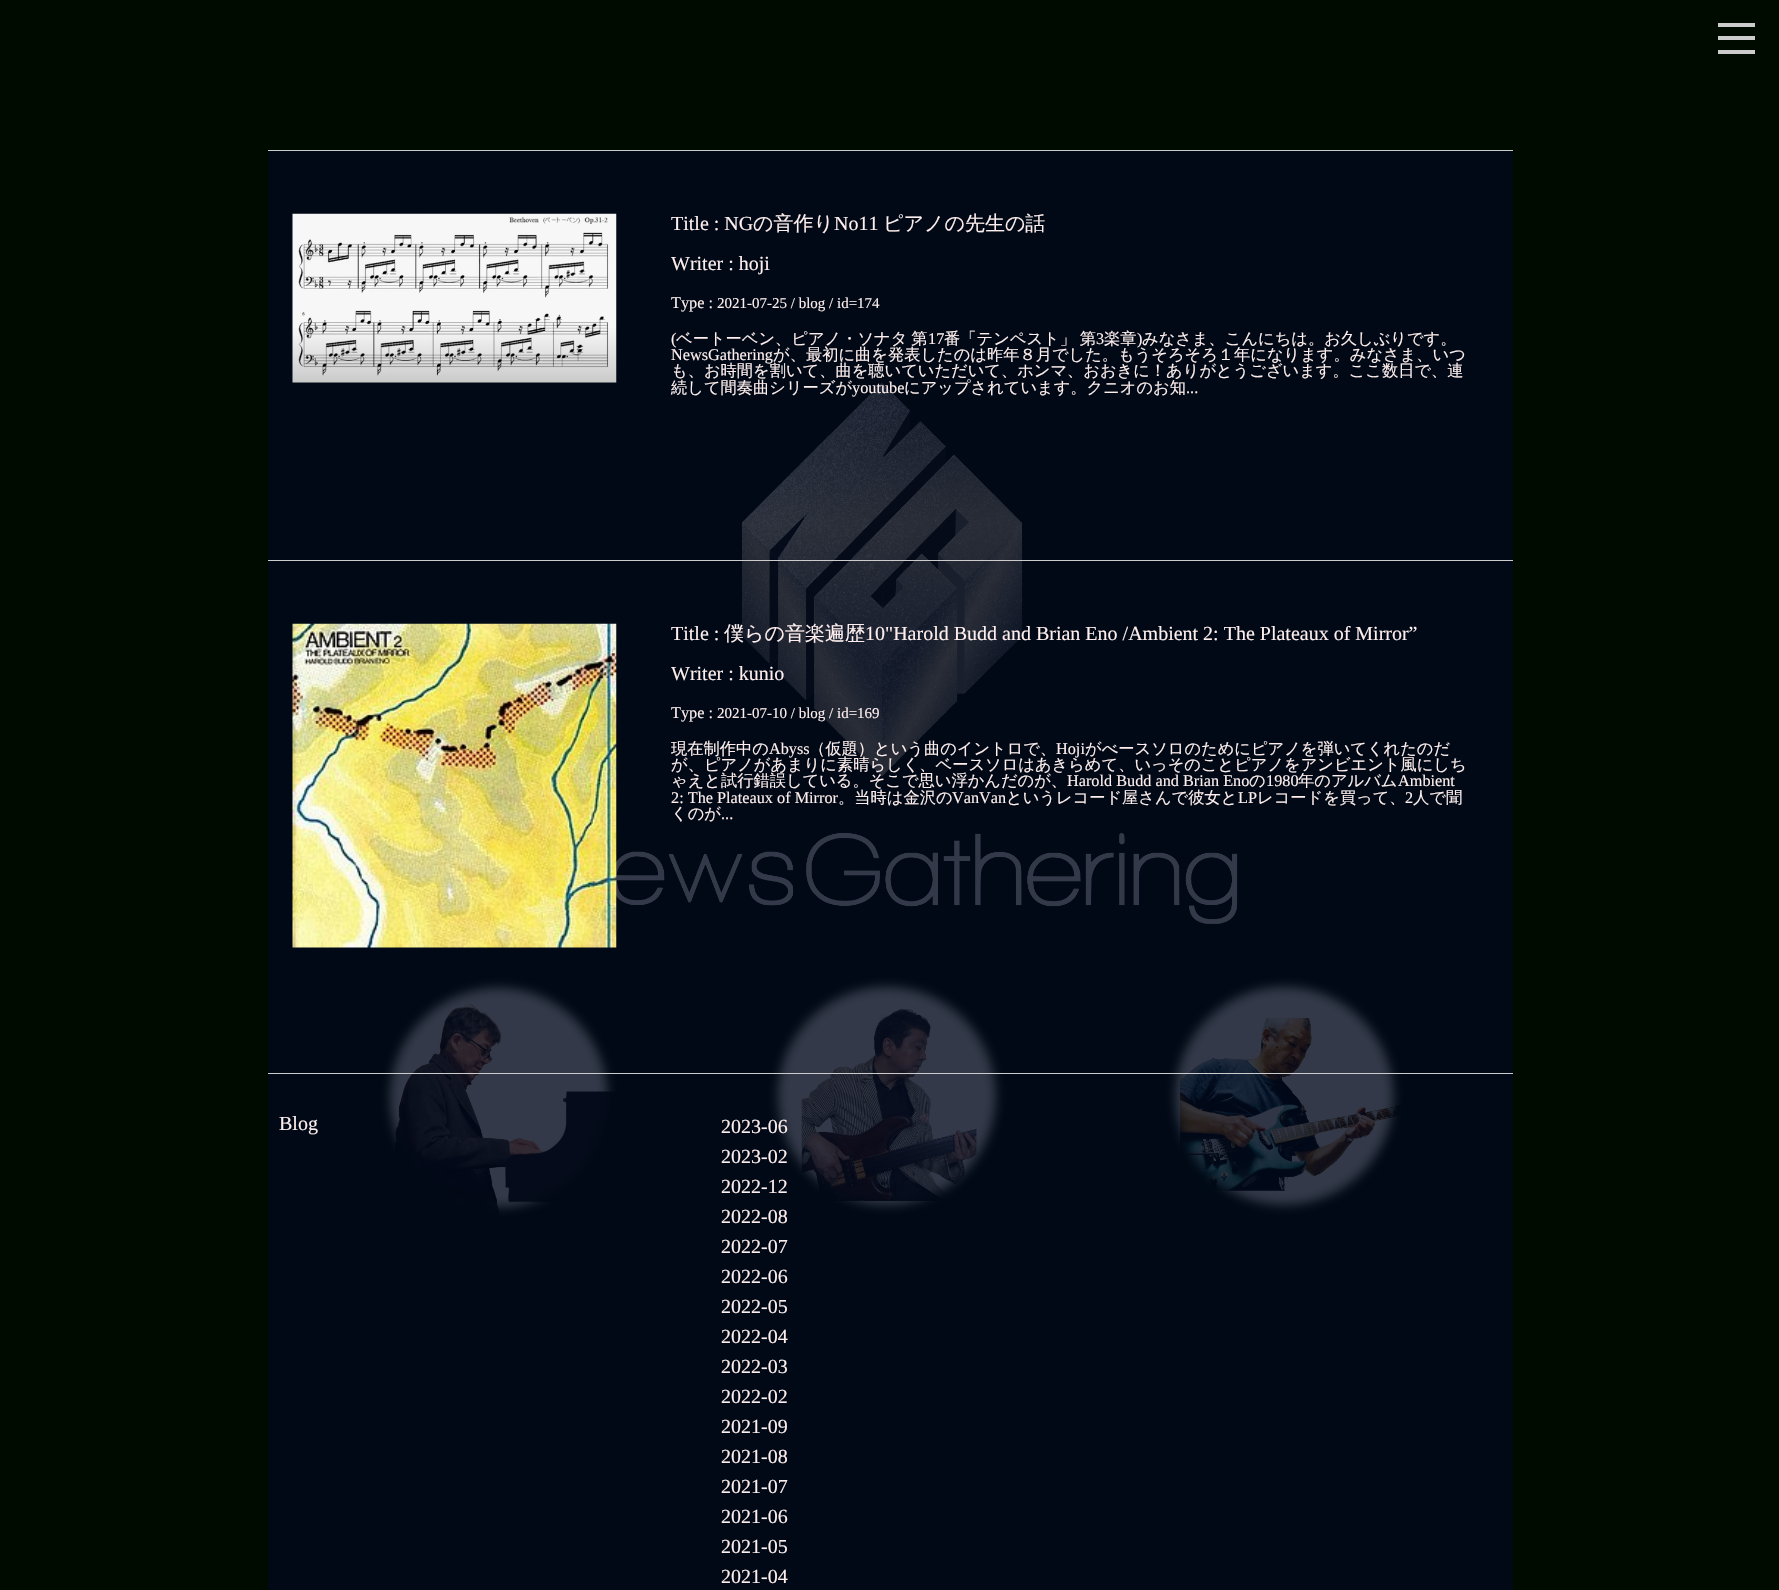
void draw(SkCanvas* canvas) {
	SkPaint paint;
	paint.setAntiAlias(true);
	auto spacedText = [&](const char* s, float x, float y, const SkFont& font, const SkPaint& ink, float letter, float word) {
		std::vector<SkGlyphID> glyphs(font.countText(s, strlen(s), SkTextEncoding::kUTF8));
		std::vector<float> xs(glyphs.size());
		font.textToGlyphs(s, strlen(s), SkTextEncoding::kUTF8, glyphs);
		font.getXPos(glyphs, xs, x);
		float extra = 0;
		for (size_t i = 0; i < glyphs.size(); i++) {
			xs[i] += extra;
			extra += letter + word * (glyphs[i] == font.unicharToGlyph(' '));
		}
		canvas->drawTextBlob(SkTextBlob::MakeFromPosHGlyphs(glyphs, xs, y, font), 0, 0, ink);
	};
	canvas->clear(0xff000b00);
	paint.setColor(0xffcccccc);
	canvas->drawRect(SkRect::MakeXYWH(1718, 23, 37, 4), paint);
	canvas->drawRect(SkRect::MakeXYWH(1718, 36, 37, 4), paint);
	canvas->drawRect(SkRect::MakeXYWH(1718, 50, 37, 4), paint);
	canvas->drawImageRect(SkImages::DeferredFromEncodedData(SkData::MakeFromFileName("img3.png")), SkRect::MakeXYWH(380, 382, 1024, 835), SkSamplingOptions());
	paint.setColor(0xcc00081a);
	canvas->drawRect(SkRect::MakeXYWH(268, 151, 1245, 409), paint);
	paint.setColor(0xffcccccc);
	canvas->drawRect(SkRect::MakeXYWH(268, 150, 1245, 1), paint);
	canvas->drawImageRect(SkImages::DeferredFromEncodedData(SkData::MakeFromFileName("img1.png")), SkRect::MakeXYWH(292, 213, 325, 170), SkSamplingOptions());
	SkFont f1(fontMgr->matchFamilyStyle("Liberation Serif", SkFontStyle::Normal()), 20);
	f1.setSubpixel(true);
	paint.setColor(0xfffeeeed);
	canvas->drawString("Title : NG", 671, 230, f1, paint);
	SkFont f2(fontMgr->matchFamilyStyle("WenQuanYi Zen Hei", SkFontStyle(500, SkFontStyle::kNormal_Width, SkFontStyle::kUpright_Slant)), 20);
	f2.setSubpixel(true);
	canvas->drawString("の音作り", 753, 230, f2, paint);
	canvas->drawString("No11", 834, 230, f1, paint);
	canvas->drawString("ピアノの先生の話", 883, 230, f2, paint);
	canvas->drawString("Writer : hoji", 671, 270, f1, paint);
	SkFont f3(fontMgr->matchFamilyStyle("Liberation Serif", SkFontStyle::Normal()), 16.25);
	f3.setSubpixel(true);
	canvas->drawString("Type :", 671, 308, f3, paint);
	SkFont f4(fontMgr->matchFamilyStyle("Liberation Serif", SkFontStyle::Normal()), 15);
	f4.setSubpixel(true);
	canvas->drawString("2021-07-25 / blog / id=174", 717, 308, f4, paint);
	canvas->drawString("(", 671, 344, f3, paint);
	SkFont f5(fontMgr->matchFamilyStyle("WenQuanYi Zen Hei", SkFontStyle(500, SkFontStyle::kNormal_Width, SkFontStyle::kUpright_Slant)), 16.25);
	f5.setSubpixel(true);
	spacedText("ベートーベン、ピアノ・ソナタ 第", 676, 344, f5, paint, 0, -1);
	canvas->drawString("17", 928, 344, f3, paint);
	spacedText("番「テンペスト」 第", 944, 344, f5, paint, 0, -1);
	canvas->drawString("3", 1096, 344, f3, paint);
	canvas->drawString("楽章", 1104, 344, f5, paint);
	canvas->drawString(")", 1137, 344, f3, paint);
	canvas->drawString("みなさま、こんにちは。お久しぶりです。", 1142, 344, f5, paint);
	canvas->drawString("NewsGathering", 671, 360, f3, paint);
	canvas->drawString("が、最初に曲を発表したのは昨年８月でした。もうそろそろ１年になります。みなさま、いつ", 773, 360, f5, paint);
	canvas->drawString("も、お時間を割いて、曲を聴いていただいて、ホンマ、おおきに！ありがとうございます。ここ数日で、連", 671, 376, f5, paint);
	canvas->drawString("続して間奏曲シリーズが", 671, 393, f5, paint);
	canvas->drawString("youtube", 852, 393, f3, paint);
	canvas->drawString("にアップされています。クニオのお知", 904, 393, f5, paint);
	canvas->drawString("...", 1186, 393, f3, paint);
	paint.setColor(0xcc00081a);
	canvas->drawRect(SkRect::MakeXYWH(268, 561, 1245, 512), paint);
	paint.setColor(0xffcccccc);
	canvas->drawRect(SkRect::MakeXYWH(268, 560, 1245, 1), paint);
	canvas->drawImageRect(SkImages::DeferredFromEncodedData(SkData::MakeFromFileName("img2.png")), SkRect::MakeXYWH(292, 623, 325, 325), SkSamplingOptions());
	paint.setColor(0xfffeeeed);
	canvas->drawString("Title :", 671, 640, f1, paint);
	canvas->drawString("僕らの音楽遍歴", 724, 640, f2, paint);
	canvas->drawString("10\"Harold Budd and Brian Eno /Ambient 2: The Plateaux of Mirror”", 865, 640, f1, paint);
	canvas->drawString("Writer : kunio", 671, 680, f1, paint);
	canvas->drawString("Type :", 671, 718, f3, paint);
	canvas->drawString("2021-07-10 / blog / id=169", 717, 718, f4, paint);
	canvas->drawString("現在制作中の", 671, 754, f5, paint);
	canvas->drawString("Abyss", 769, 754, f3, paint);
	canvas->drawString("（仮題）という曲のイントロで、", 809, 754, f5, paint);
	canvas->drawString("Hoji", 1056, 754, f3, paint);
	canvas->drawString("がべースソロのためにピアノを弾いてくれたのだ", 1085, 754, f5, paint);
	canvas->drawString("が、ピアノがあまりに素晴らしく、ベースソロはあきらめて、いっそのことピアノをアンビエント風にしち", 671, 770, f5, paint);
	canvas->drawString("ゃえと試行錯誤している。そこで思い浮かんだのが、", 671, 786, f5, paint);
	canvas->drawString("Harold Budd and Brian Eno", 1067, 786, f3, paint);
	canvas->drawString("の", 1249, 786, f5, paint);
	canvas->drawString("1980", 1266, 786, f3, paint);
	canvas->drawString("年のアルバム", 1298, 786, f5, paint);
	canvas->drawString("Ambient", 1398, 786, f3, paint);
	canvas->drawString("2: The Plateaux of Mirror", 671, 803, f3, paint);
	canvas->drawString("。当時は金沢の", 838, 803, f5, paint);
	canvas->drawString("VanVan", 952, 803, f3, paint);
	canvas->drawString("というレコード屋さんで彼女と", 1006, 803, f5, paint);
	canvas->drawString("LP", 1238, 803, f3, paint);
	canvas->drawString("レコードを買って、", 1257, 803, f5, paint);
	canvas->drawString("2", 1405, 803, f3, paint);
	canvas->drawString("人で聞", 1413, 803, f5, paint);
	canvas->drawString("くのが", 671, 819, f5, paint);
	canvas->drawString("...", 721, 819, f3, paint);
	paint.setColor(0xcc00081a);
	canvas->drawRect(SkRect::MakeXYWH(268, 1074, 1245, 516), paint);
	paint.setColor(0xffcccccc);
	canvas->drawRect(SkRect::MakeXYWH(268, 1073, 1245, 1), paint);
	paint.setColor(0xfffeeeed);
	canvas->drawString("Blog", 279, 1130, f1, paint);
	canvas->drawString("2023-06", 721, 1133, f1, paint);
	canvas->drawString("2023-02", 721, 1163, f1, paint);
	canvas->drawString("2022-12", 721, 1193, f1, paint);
	canvas->drawString("2022-08", 721, 1223, f1, paint);
	canvas->drawString("2022-07", 721, 1253, f1, paint);
	canvas->drawString("2022-06", 721, 1283, f1, paint);
	canvas->drawString("2022-05", 721, 1313, f1, paint);
	canvas->drawString("2022-04", 721, 1343, f1, paint);
	canvas->drawString("2022-03", 721, 1373, f1, paint);
	canvas->drawString("2022-02", 721, 1403, f1, paint);
	canvas->drawString("2021-09", 721, 1433, f1, paint);
	canvas->drawString("2021-08", 721, 1463, f1, paint);
	canvas->drawString("2021-07", 721, 1493, f1, paint);
	canvas->drawString("2021-06", 721, 1523, f1, paint);
	canvas->drawString("2021-05", 721, 1553, f1, paint);
	canvas->drawString("2021-04", 721, 1583, f1, paint);
}
